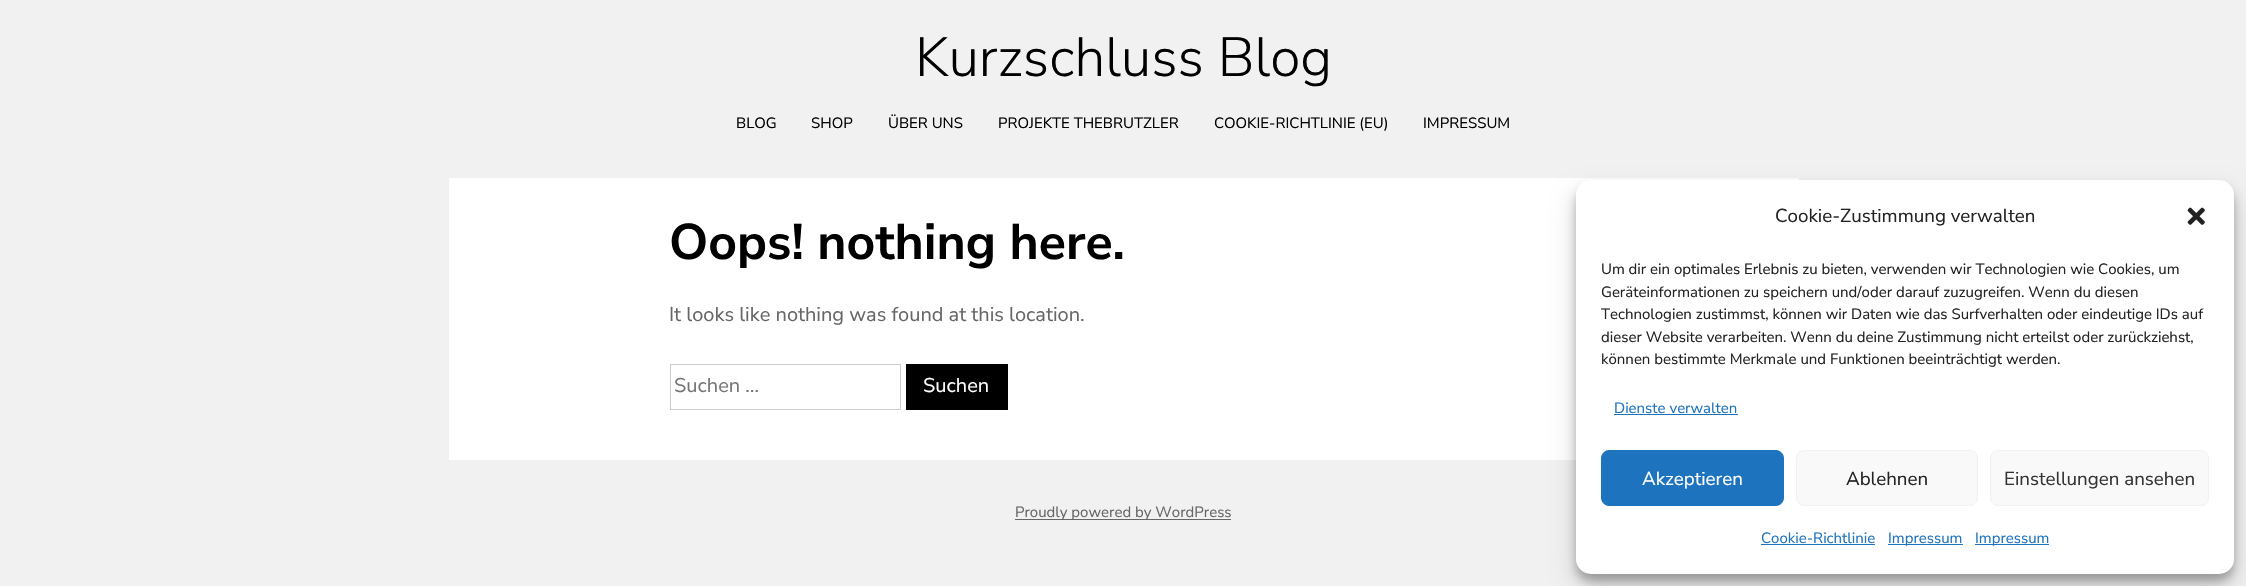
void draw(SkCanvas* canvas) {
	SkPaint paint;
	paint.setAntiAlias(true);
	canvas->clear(0xfff1f1f1);
	SkFont f1(fontMgr->matchFamilyStyle("Nunito Sans", SkFontStyle(300, SkFontStyle::kNormal_Width, SkFontStyle::kUpright_Slant)), 55);
	f1.setSubpixel(true);
	paint.setColor(0xff000000);
	canvas->drawString("Kurzschluss Blog", 915, 76, f1, paint);
	SkFont f2(fontMgr->matchFamilyStyle("Nunito Sans", SkFontStyle::Normal()), 15);
	f2.setSubpixel(true);
	canvas->drawString("BLOG", 736, 128, f2, paint);
	canvas->drawString("SHOP", 811, 128, f2, paint);
	canvas->drawString("ÜBER UNS", 888, 128, f2, paint);
	canvas->drawString("PROJEKTE THEBRUTZLER", 998, 128, f2, paint);
	canvas->drawString("COOKIE-RICHTLINIE (EU)", 1214, 128, f2, paint);
	canvas->drawString("IMPRESSUM", 1423, 128, f2, paint);
	paint.setColor(0xffffffff);
	canvas->drawRect(SkRect::MakeXYWH(449, 178, 1350, 282), paint);
	SkFont f3(fontMgr->matchFamilyStyle("Nunito Sans", SkFontStyle::Bold()), 50);
	f3.setSubpixel(true);
	paint.setColor(0xff000000);
	canvas->drawString("Oops! nothing here.", 669, 259, f3, paint);
	SkFont f4(fontMgr->matchFamilyStyle("Nunito Sans", SkFontStyle::Normal()), 20);
	f4.setSubpixel(true);
	paint.setColor(0xff666666);
	canvas->drawString("It looks like nothing was found at this location.", 669, 321, f4, paint);
	paint.setStroke(true);
	paint.setStrokeWidth(1);
	paint.setColor(0xffcccccc);
	canvas->drawRect(SkRect::MakeXYWH(670.5, 364.5, 230, 45), paint);
	paint.setStroke(false);
	paint.setColor(0xff757575);
	canvas->drawString("Suchen …", 674, 392, f4, paint);
	paint.setColor(0xff000000);
	canvas->drawRect(SkRect::MakeXYWH(906, 364, 102, 46), paint);
	paint.setColor(0xffffffff);
	canvas->drawString("Suchen", 923, 392, f4, paint);
	paint.setColor(0xff666666);
	canvas->drawRect(SkRect::MakeXYWH(1015, 519, 216, 1), paint);
	canvas->drawString("Proudly powered by WordPress", 1015, 517, f2, paint);
	paint.setColor(0x3b000000);
	paint.setMaskFilter(SkMaskFilter::MakeBlur(kNormal_SkBlurStyle, 4));
	canvas->drawRoundRect(SkRect::MakeXYWH(1576, 188, 658, 393), 15, 15, paint);
	paint.setMaskFilter(nullptr);
	paint.setColor(0x30000000);
	paint.setMaskFilter(SkMaskFilter::MakeBlur(kNormal_SkBlurStyle, 12.5));
	canvas->drawRoundRect(SkRect::MakeXYWH(1576, 193, 658, 393), 15, 15, paint);
	paint.setMaskFilter(nullptr);
	paint.setColor(0xffffffff);
	canvas->drawRoundRect(SkRect::MakeXYWH(1576, 180, 658, 394), 15, 15, paint);
	SkFont f5(fontMgr->matchFamilyStyle("Nunito Sans", SkFontStyle::Normal()), 18.75);
	f5.setSubpixel(true);
	paint.setColor(0xff222222);
	canvas->drawString("Cookie-Zustimmung verwalten", 1775, 222, f5, paint);
	canvas->drawImageRect(SkImages::DeferredFromEncodedData(SkData::MakeFromFileName("img1.png")), SkRect::MakeXYWH(2187, 207, 18, 18), SkSamplingOptions());
	canvas->drawString("Um dir ein optimales Erlebnis zu bieten, verwenden wir Technologien wie Cookies, um", 1601, 274, f2, paint);
	canvas->drawString("Geräteinformationen zu speichern und/oder darauf zuzugreifen. Wenn du diesen", 1601, 297, f2, paint);
	canvas->drawString("Technologien zustimmst, können wir Daten wie das Surfverhalten oder eindeutige IDs auf", 1601, 319, f2, paint);
	canvas->drawString("dieser Website verarbeiten. Wenn du deine Zustimmung nicht erteilst oder zurückziehst,", 1601, 342, f2, paint);
	canvas->drawString("können bestimmte Merkmale und Funktionen beeinträchtigt werden.", 1601, 364, f2, paint);
	paint.setColor(0xff1e73be);
	canvas->drawString("Dienste verwalten", 1614, 413, f2, paint);
	canvas->drawRect(SkRect::MakeXYWH(1614, 414, 124, 1), paint);
	canvas->drawRoundRect(SkRect::MakeXYWH(1601.5, 450.5, 182, 55), 7.5, 7.5, paint);
	paint.setStroke(true);
	canvas->drawRoundRect(SkRect::MakeXYWH(1601.5, 450.5, 182, 55), 7.5, 7.5, paint);
	paint.setStroke(false);
	paint.setColor(0xffffffff);
	canvas->drawString("Akzeptieren", 1642, 485, f5, paint);
	paint.setColor(0xfff9f9f9);
	canvas->drawRoundRect(SkRect::MakeXYWH(1796.5, 450.5, 181, 55), 7.5, 7.5, paint);
	paint.setStroke(true);
	paint.setColor(0xfff2f2f2);
	canvas->drawRoundRect(SkRect::MakeXYWH(1796.5, 450.5, 181, 55), 7.5, 7.5, paint);
	paint.setStroke(false);
	paint.setColor(0xff222222);
	canvas->drawString("Ablehnen", 1846, 485, f5, paint);
	paint.setColor(0xfff9f9f9);
	canvas->drawRoundRect(SkRect::MakeXYWH(1990.5, 450.5, 218, 55), 7.5, 7.5, paint);
	paint.setStroke(true);
	paint.setColor(0xfff2f2f2);
	canvas->drawRoundRect(SkRect::MakeXYWH(1990.5, 450.5, 218, 55), 7.5, 7.5, paint);
	paint.setStroke(false);
	paint.setColor(0xff333333);
	canvas->drawString("Einstellungen ansehen", 2004, 485, f5, paint);
	paint.setColor(0xff1e73be);
	canvas->drawString("Cookie-Richtlinie", 1761, 543, f2, paint);
	canvas->drawRect(SkRect::MakeXYWH(1761, 544, 114, 1), paint);
	canvas->drawRect(SkRect::MakeXYWH(1888, 544, 75, 1), paint);
	canvas->drawString("Impressum", 1888, 543, f2, paint);
	canvas->drawRect(SkRect::MakeXYWH(1975, 544, 74, 1), paint);
	canvas->drawString("Impressum", 1975, 543, f2, paint);
}
